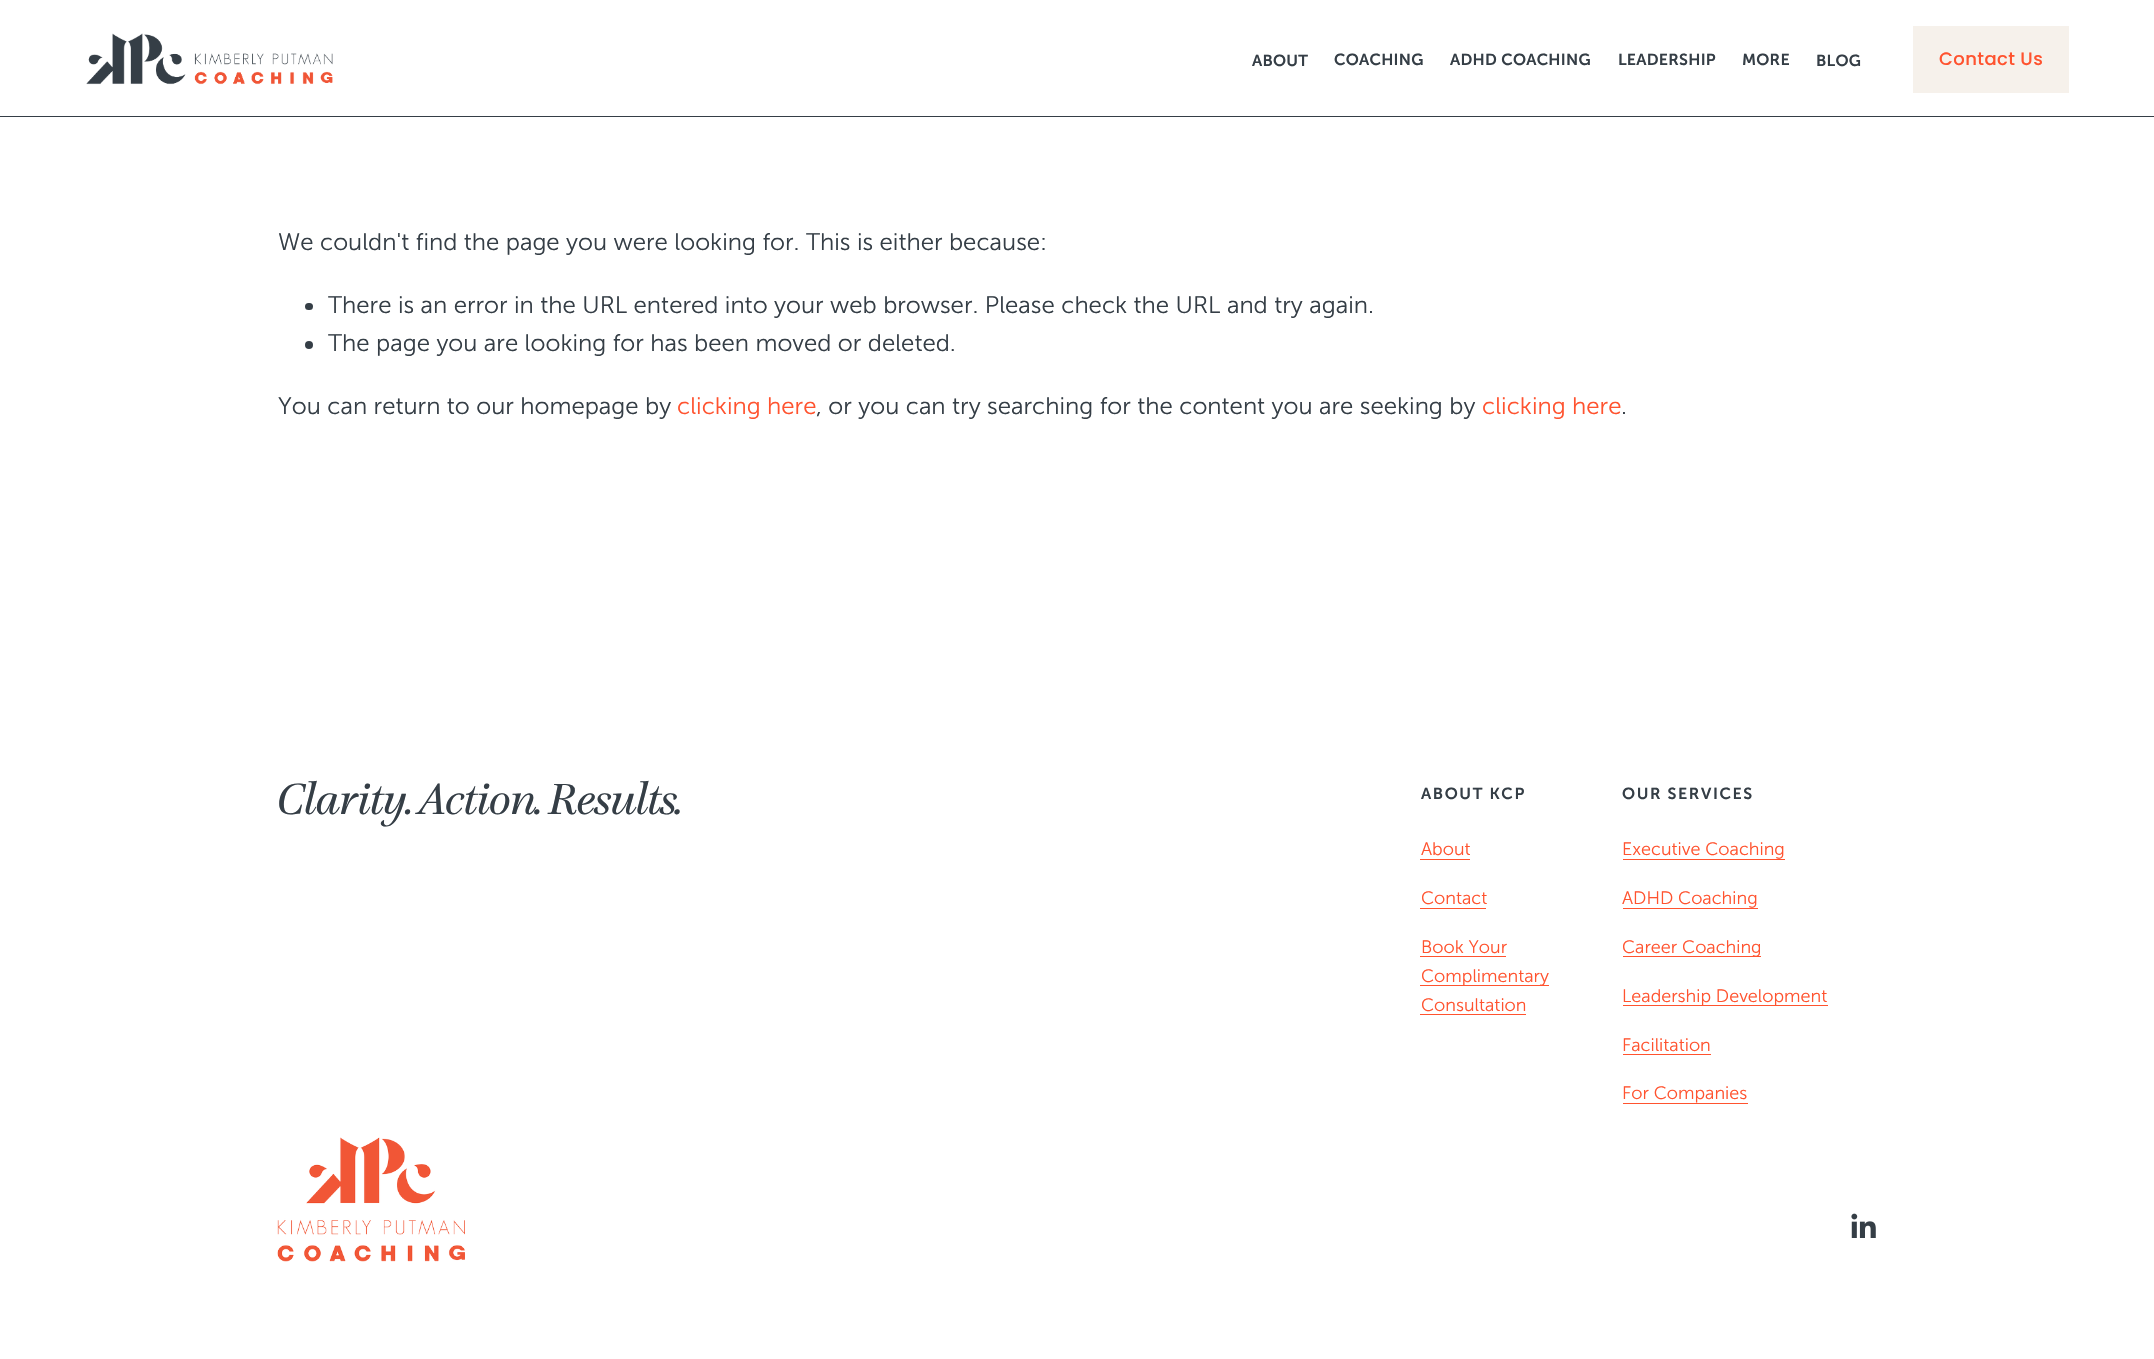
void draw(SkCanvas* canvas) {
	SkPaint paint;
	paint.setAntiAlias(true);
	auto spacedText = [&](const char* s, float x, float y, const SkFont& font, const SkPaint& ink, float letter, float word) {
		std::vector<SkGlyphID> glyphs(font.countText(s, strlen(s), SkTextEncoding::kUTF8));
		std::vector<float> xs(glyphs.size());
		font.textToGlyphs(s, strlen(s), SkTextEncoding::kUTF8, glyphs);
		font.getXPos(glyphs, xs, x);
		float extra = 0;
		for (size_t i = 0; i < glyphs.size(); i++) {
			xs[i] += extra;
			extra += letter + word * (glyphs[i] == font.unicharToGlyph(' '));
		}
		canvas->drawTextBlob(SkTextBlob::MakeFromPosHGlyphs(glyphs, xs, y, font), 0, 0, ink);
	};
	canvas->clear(0xffffffff);
	canvas->drawImageRect(SkImages::DeferredFromEncodedData(SkData::MakeFromFileName("img1.png")), SkRect::MakeXYWH(86, 33, 247, 52), SkSamplingOptions());
	SkFont f1(fontMgr->matchFamilyStyle("Museo Sans", SkFontStyle(600, SkFontStyle::kNormal_Width, SkFontStyle::kUpright_Slant)), 16);
	f1.setSubpixel(true);
	paint.setColor(0xff353e46);
	spacedText("ABOUT", 1252, 66, f1, paint, 0.25, 0);
	spacedText("COACHING", 1334, 65, f1, paint, 0.25, 0);
	spacedText("ADHD COACHING", 1450, 65, f1, paint, 0.25, 0);
	spacedText("LEADERSHIP", 1618, 65, f1, paint, 0.25, 0);
	spacedText("MORE", 1742, 65, f1, paint, 0.25, 0);
	spacedText("BLOG", 1816, 66, f1, paint, 0.25, 0);
	paint.setColor(0xfff6f1eb);
	canvas->drawRect(SkRect::MakeXYWH(1913, 26, 156, 67), paint);
	SkFont f2(fontMgr->matchFamilyStyle("Poppins", SkFontStyle(500, SkFontStyle::kNormal_Width, SkFontStyle::kUpright_Slant)), 18);
	f2.setSubpixel(true);
	paint.setColor(0xffff532f);
	spacedText("Contact Us", 1939, 65, f2, paint, 0.4, 0);
	paint.setColor(0xff353e46);
	canvas->drawRect(SkRect::MakeXYWH(0, 116, 2154, 1), paint);
	SkFont f3(fontMgr->matchFamilyStyle("Museo Sans", SkFontStyle(300, SkFontStyle::kNormal_Width, SkFontStyle::kUpright_Slant)), 24);
	f3.setSubpixel(true);
	canvas->drawString("We couldn't find the page you were looking for. This is either because:", 278, 250, f3, paint);
	canvas->drawRoundRect(SkRect::MakeXYWH(305, 303, 8, 7), 3.5, 3.5, paint);
	canvas->drawString("There is an error in the URL entered into your web browser. Please check the URL and try again.", 328, 313, f3, paint);
	canvas->drawCircle(309, 345, 4, paint);
	canvas->drawString("The page you are looking for has been moved or deleted.", 328, 351, f3, paint);
	canvas->drawString("You can return to our homepage by", 278, 414, f3, paint);
	paint.setColor(0xffff532f);
	canvas->drawString("clicking here", 677, 414, f3, paint);
	paint.setColor(0xff353e46);
	canvas->drawString(", or you can try searching for the content you are seeking by", 816, 414, f3, paint);
	paint.setColor(0xffff532f);
	canvas->drawString("clicking here", 1482, 414, f3, paint);
	paint.setColor(0xff353e46);
	canvas->drawString(".", 1621, 414, f3, paint);
	SkFont f4(fontMgr->matchFamilyStyle("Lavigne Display", SkFontStyle::Italic()), 48);
	f4.setSubpixel(true);
	spacedText("Clarity. Action. Results.", 278, 814, f4, paint, -0.5, 0);
	spacedText("ABOUT KCP", 1421, 799, f1, paint, 1.6, 0);
	SkFont f5(fontMgr->matchFamilyStyle("Museo Sans", SkFontStyle(300, SkFontStyle::kNormal_Width, SkFontStyle::kUpright_Slant)), 18);
	f5.setSubpixel(true);
	paint.setColor(0xffff532f);
	canvas->drawString("About", 1421, 855, f5, paint);
	canvas->drawRect(SkRect::MakeXYWH(1420, 859, 50, 1), paint);
	canvas->drawString("Contact", 1421, 904, f5, paint);
	canvas->drawRect(SkRect::MakeXYWH(1420, 908, 66, 1), paint);
	canvas->drawString("Book Your", 1421, 953, f5, paint);
	canvas->drawRect(SkRect::MakeXYWH(1420, 956, 86, 1), paint);
	canvas->drawRect(SkRect::MakeXYWH(1420, 985, 129, 1), paint);
	canvas->drawString("Complimentary", 1421, 982, f5, paint);
	canvas->drawString("Consultation", 1421, 1011, f5, paint);
	canvas->drawRect(SkRect::MakeXYWH(1420, 1014, 106, 1), paint);
	paint.setColor(0xff353e46);
	spacedText("OUR SERVICES", 1622, 799, f1, paint, 1.6, 0);
	paint.setColor(0xffff532f);
	canvas->drawString("Executive Coaching", 1622, 855, f5, paint);
	canvas->drawRect(SkRect::MakeXYWH(1623, 859, 162, 1), paint);
	canvas->drawString("ADHD Coaching", 1622, 904, f5, paint);
	canvas->drawRect(SkRect::MakeXYWH(1623, 908, 135, 1), paint);
	canvas->drawRect(SkRect::MakeXYWH(1623, 956, 138, 1), paint);
	canvas->drawString("Career Coaching", 1622, 953, f5, paint);
	canvas->drawRect(SkRect::MakeXYWH(1623, 1005, 205, 1), paint);
	canvas->drawString("Leadership Development", 1622, 1002, f5, paint);
	canvas->drawString("Facilitation", 1622, 1051, f5, paint);
	canvas->drawRect(SkRect::MakeXYWH(1623, 1054, 88, 1), paint);
	canvas->drawString("For Companies", 1622, 1099, f5, paint);
	canvas->drawRect(SkRect::MakeXYWH(1623, 1103, 125, 1), paint);
	canvas->drawImageRect(SkImages::DeferredFromEncodedData(SkData::MakeFromFileName("img2.png")), SkRect::MakeXYWH(277, 1137, 188, 125), SkSamplingOptions());
	canvas->drawImageRect(SkImages::DeferredFromEncodedData(SkData::MakeFromFileName("img3.png")), SkRect::MakeXYWH(1851, 1213, 25, 25), SkSamplingOptions());
}
